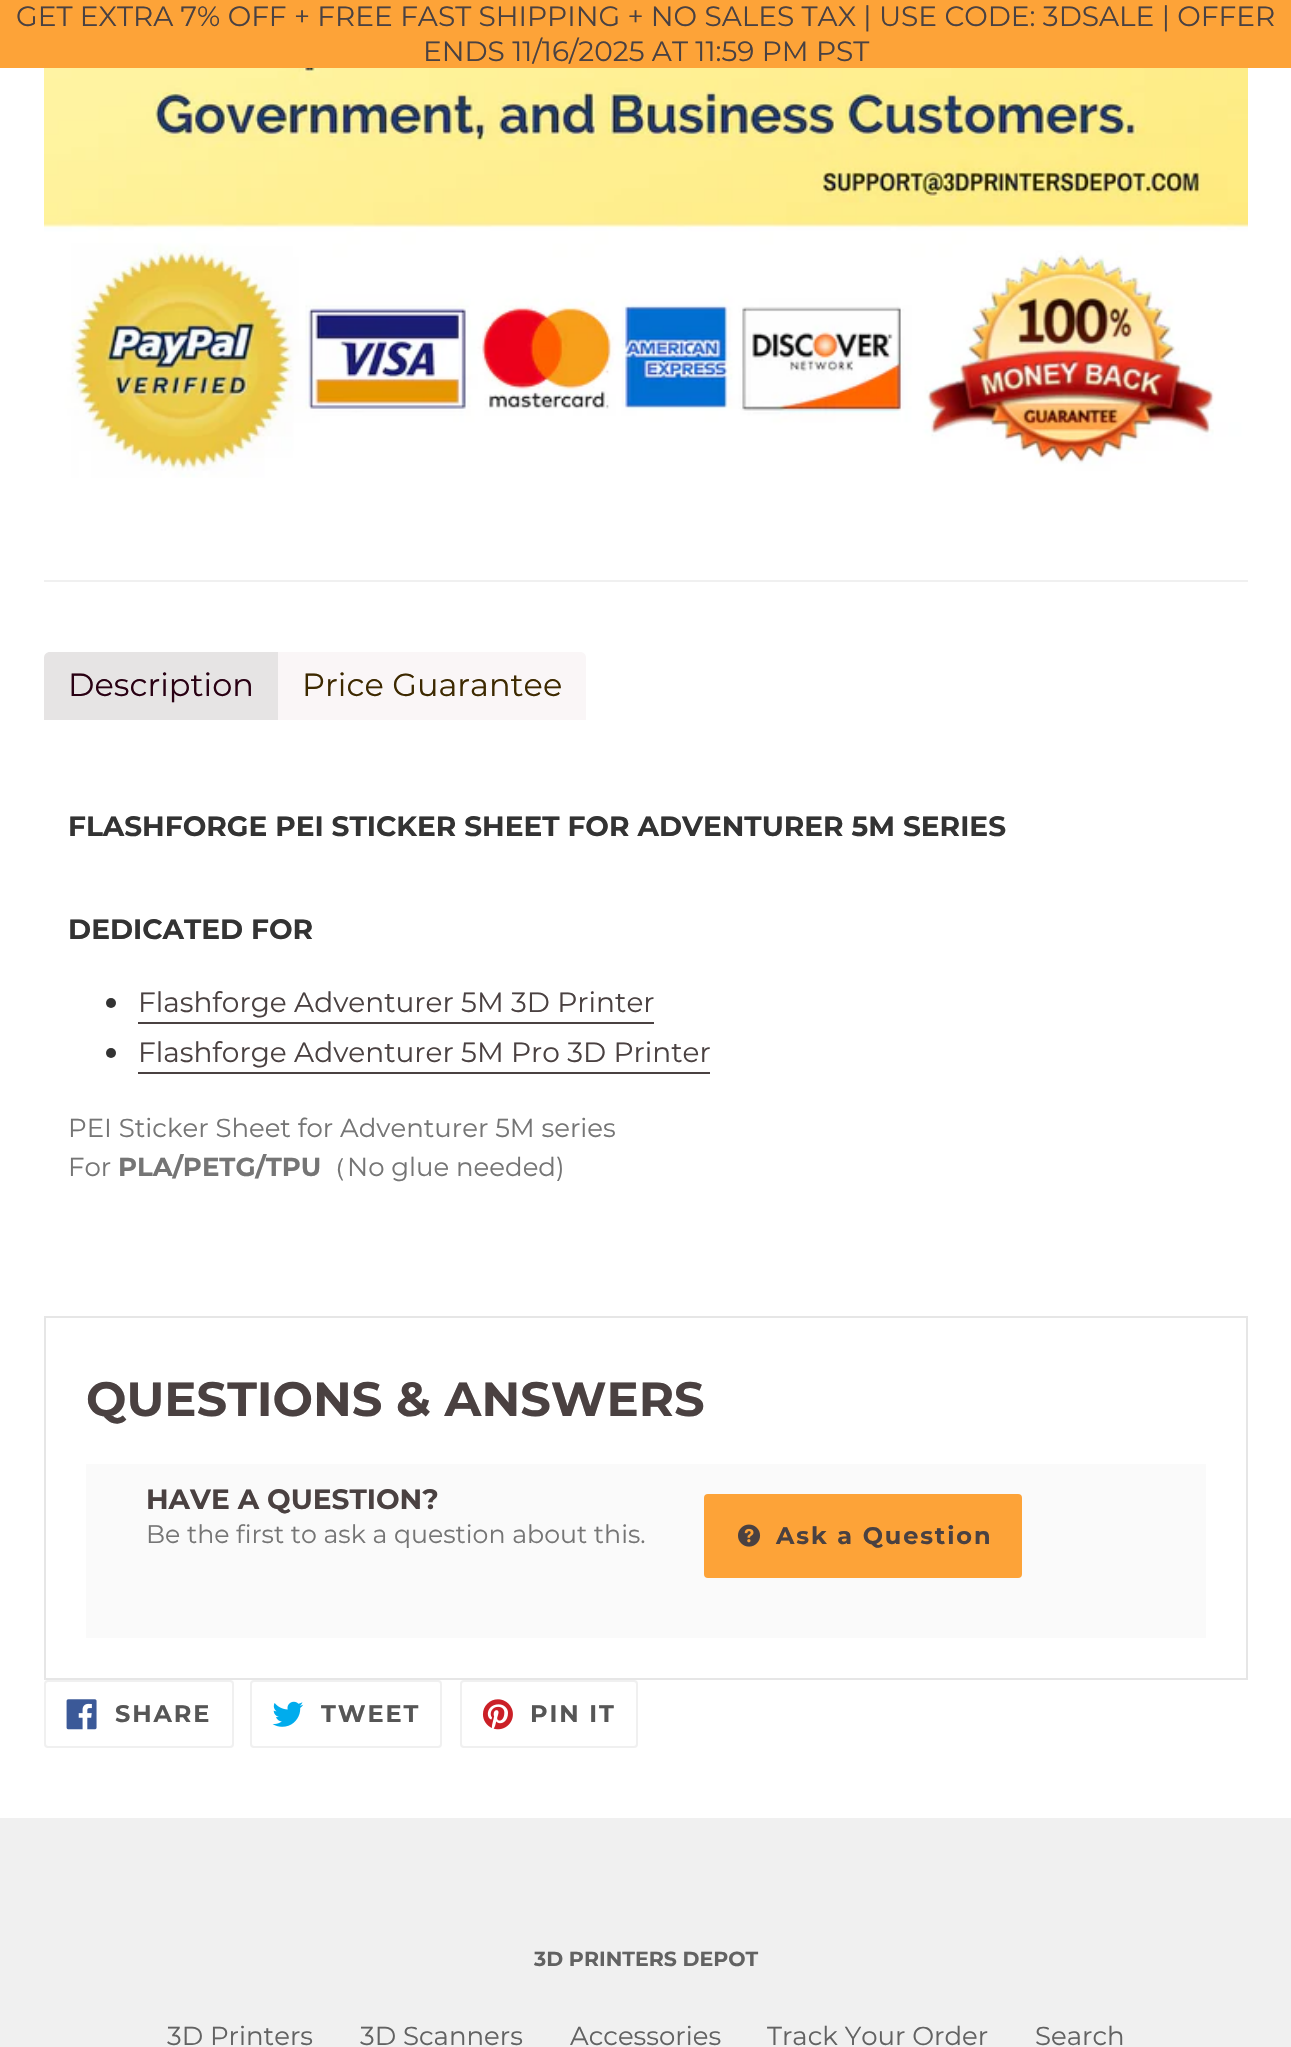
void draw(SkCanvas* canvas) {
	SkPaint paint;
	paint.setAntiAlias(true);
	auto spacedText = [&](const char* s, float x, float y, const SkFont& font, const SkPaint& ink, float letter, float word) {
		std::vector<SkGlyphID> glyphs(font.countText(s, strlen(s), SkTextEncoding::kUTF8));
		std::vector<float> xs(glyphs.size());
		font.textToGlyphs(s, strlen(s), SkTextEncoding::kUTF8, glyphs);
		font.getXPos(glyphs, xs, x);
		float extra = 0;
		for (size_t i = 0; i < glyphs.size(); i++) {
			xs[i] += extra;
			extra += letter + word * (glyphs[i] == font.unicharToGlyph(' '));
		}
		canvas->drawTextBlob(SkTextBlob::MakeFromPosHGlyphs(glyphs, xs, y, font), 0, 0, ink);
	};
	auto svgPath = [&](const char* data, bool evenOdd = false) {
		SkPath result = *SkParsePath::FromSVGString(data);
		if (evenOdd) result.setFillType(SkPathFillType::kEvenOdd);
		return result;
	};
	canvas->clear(0xffffffff);
	paint.setColor(0xfffda338);
	canvas->drawRect(SkRect::MakeXYWH(0, 0, 1291, 68), paint);
	SkFont f1(fontMgr->matchFamilyStyle("Montserrat", SkFontStyle::Normal()), 28);
	f1.setSubpixel(true);
	paint.setColor(0xff4a4141);
	canvas->drawString("GET EXTRA 7% OFF + FREE FAST SHIPPING + NO SALES TAX | USE CODE: 3DSALE | OFFER", 16, 26, f1, paint);
	canvas->drawString("ENDS 11/16/2025 AT 11:59 PM PST", 423, 61, f1, paint);
	canvas->drawImageRect(SkImages::DeferredFromEncodedData(SkData::MakeFromFileName("img1.png")), SkRect::MakeXYWH(44, 68, 1204, 410), SkSamplingOptions());
	paint.setColor(0xfff0f0f0);
	canvas->drawRect(SkRect::MakeXYWH(44, 580, 1204, 2), paint);
	paint.setColor(0xffe6e4e4);
	canvas->drawPath(svgPath("M50 652H278V720H44V658C44 654.5 46.5 652 50 652Z"), paint);
	SkFont f2(fontMgr->matchFamilyStyle("Montserrat", SkFontStyle::Normal()), 32);
	f2.setSubpixel(true);
	paint.setColor(0xff290013);
	canvas->drawString("Description", 68, 696, f2, paint);
	paint.setColor(0xfffaf6f7);
	canvas->drawPath(svgPath("M278 652H580C583.5 652 586 654.5 586 658V720H278Z"), paint);
	paint.setColor(0xff3d2900);
	canvas->drawString("Price Guarantee", 302, 696, f2, paint);
	SkFont f3(fontMgr->matchFamilyStyle("Montserrat", SkFontStyle::Bold()), 28);
	f3.setSubpixel(true);
	paint.setColor(0xff333333);
	canvas->drawString("FLASHFORGE PEI STICKER SHEET FOR ADVENTURER 5M SERIES", 68, 836, f3, paint);
	canvas->drawString("DEDICATED FOR", 68, 939, f3, paint);
	canvas->drawCircle(111, 1003, 5, paint);
	paint.setColor(0xff4a4141);
	canvas->drawString("Flashforge Adventurer 5M 3D Printer", 138, 1012, f1, paint);
	canvas->drawRect(SkRect::MakeXYWH(138, 1022, 516, 2), paint);
	paint.setColor(0xff333333);
	canvas->drawCircle(111, 1053, 5, paint);
	paint.setColor(0xff4a4141);
	canvas->drawString("Flashforge Adventurer 5M Pro 3D Printer", 138, 1062, f1, paint);
	canvas->drawRect(SkRect::MakeXYWH(138, 1072, 572, 2), paint);
	SkFont f4(fontMgr->matchFamilyStyle("Montserrat", SkFontStyle::Normal()), 26);
	f4.setSubpixel(true);
	paint.setColor(0xff757575);
	canvas->drawString("PEI Sticker Sheet for Adventurer 5M series", 68, 1137, f4, paint);
	canvas->drawString("For", 68, 1176, f4, paint);
	SkFont f5(fontMgr->matchFamilyStyle("Montserrat", SkFontStyle::Bold()), 26);
	f5.setSubpixel(true);
	canvas->drawString("PLA/PETG/TPU", 118, 1176, f5, paint);
	SkFont f6(fontMgr->matchFamilyStyle("WenQuanYi Zen Hei", SkFontStyle(500, SkFontStyle::kNormal_Width, SkFontStyle::kUpright_Slant)), 26);
	f6.setSubpixel(true);
	canvas->drawString("（", 321, 1176, f6, paint);
	canvas->drawString("No glue needed)", 347, 1176, f4, paint);
	paint.setStroke(true);
	paint.setStrokeWidth(2);
	paint.setColor(0xffe6e6e6);
	canvas->drawRect(SkRect::MakeXYWH(45, 1317, 1202, 362), paint);
	SkFont f7(fontMgr->matchFamilyStyle("Montserrat", SkFontStyle::Bold()), 48);
	f7.setSubpixel(true);
	paint.setStroke(false);
	paint.setColor(0xff4a4141);
	canvas->drawString("QUESTIONS & ANSWERS", 86, 1416, f7, paint);
	paint.setColor(0xfffafafa);
	canvas->drawRect(SkRect::MakeXYWH(86, 1464, 1120, 174), paint);
	paint.setColor(0xff4a4141);
	canvas->drawString("HAVE A QUESTION?", 146, 1509, f3, paint);
	SkFont f8(fontMgr->matchFamilyStyle("Montserrat", SkFontStyle::Normal()), 25.25);
	f8.setSubpixel(true);
	paint.setColor(0xff757575);
	canvas->drawString("Be the first to ask a question about this.", 146, 1543, f8, paint);
	paint.setColor(0xfffda338);
	canvas->drawRoundRect(SkRect::MakeXYWH(704, 1494, 318, 84), 4, 4, paint);
	canvas->drawImageRect(SkImages::DeferredFromEncodedData(SkData::MakeFromFileName("img2.png")), SkRect::MakeXYWH(738, 1524, 23, 23), SkSamplingOptions());
	SkFont f9(fontMgr->matchFamilyStyle("Montserrat", SkFontStyle::Bold()), 24);
	f9.setSubpixel(true);
	paint.setColor(0xff4a4141);
	spacedText("Ask a Question", 776, 1544, f9, paint, 1.9, 0);
	paint.setStroke(true);
	paint.setColor(0xfff0f0f0);
	canvas->drawRoundRect(SkRect::MakeXYWH(45, 1681, 188, 66), 3, 3, paint);
	canvas->drawImageRect(SkImages::DeferredFromEncodedData(SkData::MakeFromFileName("img3.png")), SkRect::MakeXYWH(66, 1699, 31, 31), SkSamplingOptions());
	paint.setStroke(false);
	paint.setColor(0xff565656);
	spacedText("SHARE", 115, 1722, f9, paint, 1.9, 0);
	paint.setStroke(true);
	paint.setColor(0xfff0f0f0);
	canvas->drawRoundRect(SkRect::MakeXYWH(251, 1681, 190, 66), 3, 3, paint);
	canvas->drawImageRect(SkImages::DeferredFromEncodedData(SkData::MakeFromFileName("img4.png")), SkRect::MakeXYWH(272, 1701, 32, 26), SkSamplingOptions());
	paint.setStroke(false);
	paint.setColor(0xff565656);
	spacedText("TWEET", 321, 1722, f9, paint, 1.9, 0);
	paint.setStroke(true);
	paint.setColor(0xfff0f0f0);
	canvas->drawRoundRect(SkRect::MakeXYWH(461, 1681, 176, 66), 3, 3, paint);
	canvas->drawImageRect(SkImages::DeferredFromEncodedData(SkData::MakeFromFileName("img5.png")), SkRect::MakeXYWH(482, 1699, 31, 31), SkSamplingOptions());
	paint.setStroke(false);
	paint.setColor(0xff565656);
	spacedText("PIN IT", 530, 1722, f9, paint, 1.9, 0);
	paint.setColor(0xfff0f0f0);
	canvas->drawRect(SkRect::MakeXYWH(0, 1818, 1291, 229), paint);
	SkFont f10(fontMgr->matchFamilyStyle("Montserrat", SkFontStyle::Bold()), 20.5);
	f10.setSubpixel(true);
	paint.setColor(0xff626262);
	canvas->drawString("3D PRINTERS DEPOT", 534, 1966, f10, paint);
	canvas->drawString("3D Printers", 167, 2045, f4, paint);
	canvas->drawString("3D Scanners", 360, 2045, f4, paint);
	canvas->drawString("Accessories", 570, 2045, f4, paint);
	canvas->drawString("Track Your Order", 767, 2045, f4, paint);
	canvas->drawString("Search", 1035, 2045, f4, paint);
}
